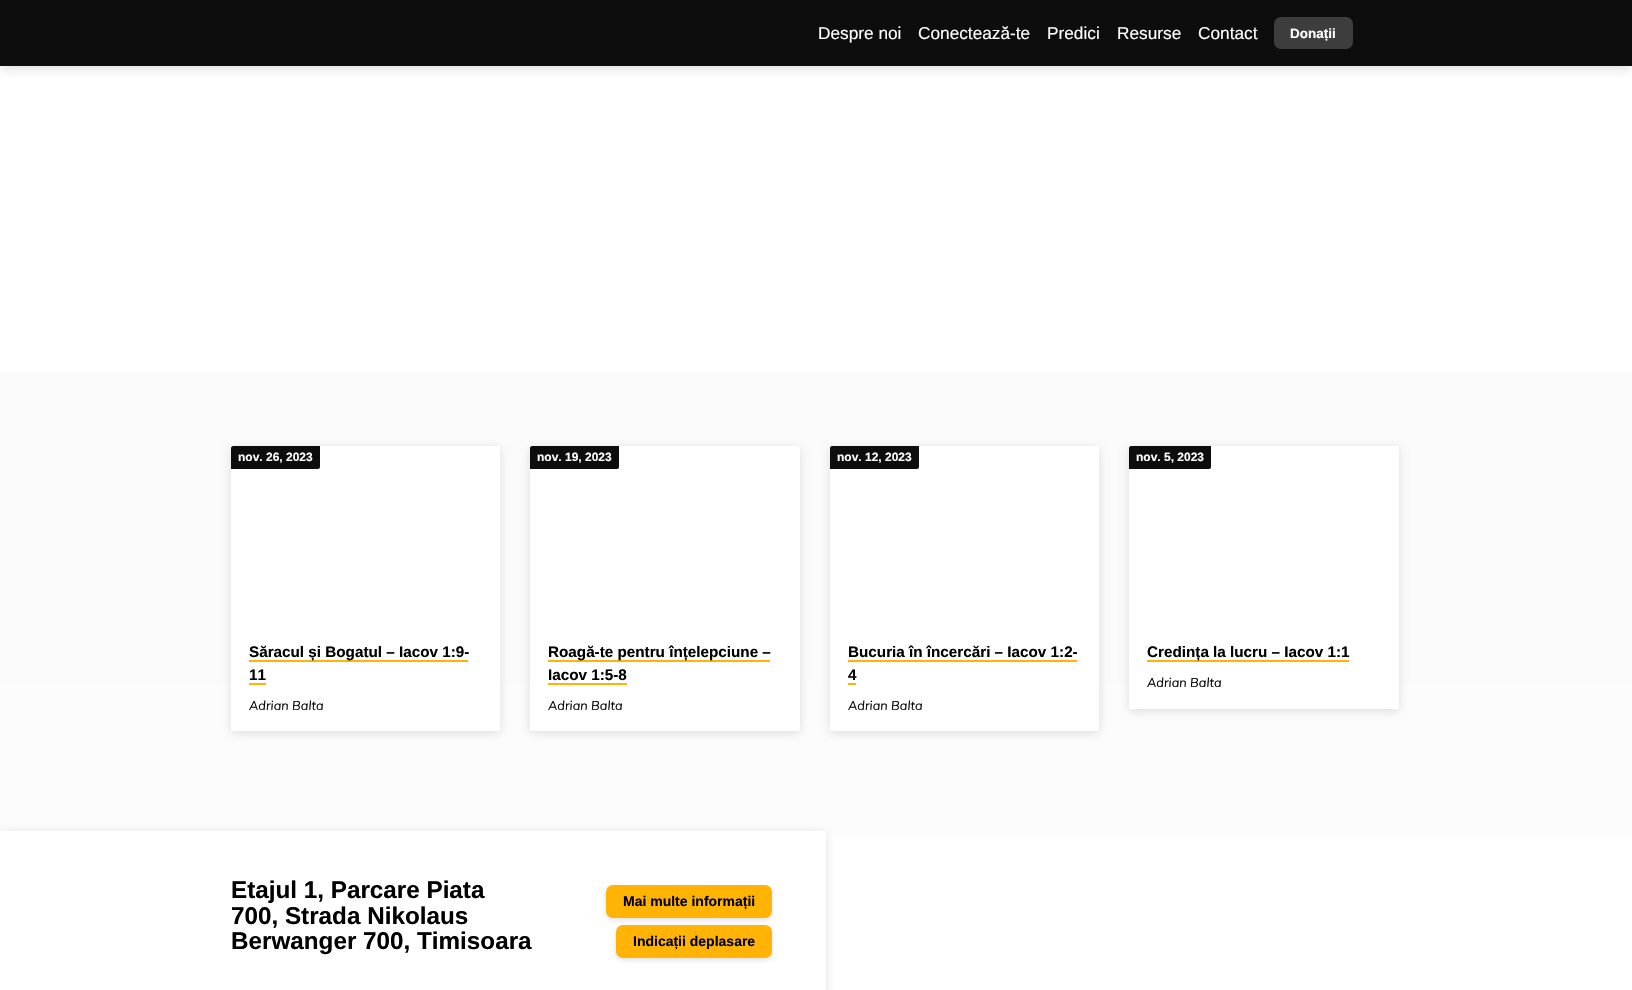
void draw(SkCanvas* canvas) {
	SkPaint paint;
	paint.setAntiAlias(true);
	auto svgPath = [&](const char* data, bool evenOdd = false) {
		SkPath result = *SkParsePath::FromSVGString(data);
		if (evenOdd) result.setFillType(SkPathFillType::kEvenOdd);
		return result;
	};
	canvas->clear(0xffffffff);
	paint.setColor(0x260d0d0d);
	paint.setMaskFilter(SkMaskFilter::MakeBlur(kNormal_SkBlurStyle, 6));
	canvas->drawRect(SkRect::MakeXYWH(0, 2, 1632, 66), paint);
	paint.setMaskFilter(nullptr);
	paint.setColor(0xff0d0d0d);
	canvas->drawRect(SkRect::MakeXYWH(0, 0, 1632, 66), paint);
	SkFont f1(fontMgr->matchFamilyStyle("Liberation Sans", SkFontStyle::Normal()), 17.25);
	f1.setSubpixel(true);
	paint.setColor(0xffffffff);
	canvas->drawString("Despre noi", 818, 39, f1, paint);
	canvas->drawString("Conectează-te", 918, 39, f1, paint);
	canvas->drawString("Predici", 1047, 39, f1, paint);
	canvas->drawString("Resurse", 1117, 39, f1, paint);
	canvas->drawString("Contact", 1198, 39, f1, paint);
	paint.setColor(0xff3d3d3d);
	canvas->drawRoundRect(SkRect::MakeXYWH(1274, 17, 79, 32), 7, 7, paint);
	SkFont f2(fontMgr->matchFamilyStyle("Liberation Sans", SkFontStyle::Bold()), 13.5);
	f2.setSubpixel(true);
	paint.setColor(0xffffffff);
	canvas->drawString("Donații", 1290, 38, f2, paint);
	{
		const SkColor colors[] = {0xfffcfcfc, 0xfffbfbfb};
		const float stops[] = {0.22, 0.43};
		const SkPoint ends[] = {{816, 836}, {816, 371}};
		paint.setShader(SkGradientShader::MakeLinear(ends, colors, stops, 2, SkTileMode::kClamp));
		paint.setAlpha(255);
	}
	canvas->drawRect(SkRect::MakeXYWH(0, 371, 1632, 465), paint);
	paint.setShader(nullptr);
	paint.setColor(0x1f000000);
	paint.setMaskFilter(SkMaskFilter::MakeBlur(kNormal_SkBlurStyle, 5));
	canvas->drawRoundRect(SkRect::MakeXYWH(231, 448, 269, 285), 2, 2, paint);
	paint.setMaskFilter(nullptr);
	paint.setColor(0xffffffff);
	canvas->drawRoundRect(SkRect::MakeXYWH(231, 446, 269, 285), 2, 2, paint);
	paint.setColor(0xff0d0d0d);
	canvas->drawPath(svgPath("M233 446H320V467C320 468 319 469 318 469H231V448C231 447 232 446 233 446Z"), paint);
	SkFont f3(fontMgr->matchFamilyStyle("Liberation Sans", SkFontStyle::Bold()), 12);
	f3.setSubpixel(true);
	paint.setColor(0xffffffff);
	canvas->drawString("nov. 26, 2023", 238, 461, f3, paint);
	paint.setColor(0xffffb405);
	canvas->drawRect(SkRect::MakeXYWH(249, 660, 219, 2), paint);
	SkFont f4(fontMgr->matchFamilyStyle("Liberation Sans", SkFontStyle::Bold()), 15.25);
	f4.setSubpixel(true);
	paint.setColor(0xff000000);
	canvas->drawString("Săracul și Bogatul – Iacov 1:9-", 249, 657, f4, paint);
	canvas->drawString("11", 249, 680, f4, paint);
	paint.setColor(0xffffb405);
	canvas->drawRect(SkRect::MakeXYWH(249, 683, 17, 2), paint);
	SkFont f5(fontMgr->matchFamilyStyle("Muli", SkFontStyle::Italic()), 12.75);
	f5.setSubpixel(true);
	paint.setColor(0xff000000);
	canvas->drawString("Adrian Balta", 249, 710, f5, paint);
	{
		const SkColor colors[] = {0x00ffffff, 0xe6ffffff};
		const float stops[] = {0, 1};
		const SkPoint ends[] = {{366, 706}, {366, 731}};
		paint.setShader(SkGradientShader::MakeLinear(ends, colors, stops, 2, SkTileMode::kClamp));
		paint.setAlpha(255);
	}
	canvas->drawPath(svgPath("M231 706H500V729C500 730 499 731 498 731H233C232 731 231 730 231 729Z"), paint);
	paint.setShader(nullptr);
	paint.setColor(0x1f000000);
	paint.setMaskFilter(SkMaskFilter::MakeBlur(kNormal_SkBlurStyle, 5));
	canvas->drawRoundRect(SkRect::MakeXYWH(530, 448, 270, 285), 2, 2, paint);
	paint.setMaskFilter(nullptr);
	paint.setColor(0xffffffff);
	canvas->drawRoundRect(SkRect::MakeXYWH(530, 446, 270, 285), 2, 2, paint);
	paint.setColor(0xff0d0d0d);
	canvas->drawPath(svgPath("M532 446H619V467C619 468 618 469 617 469H530V448C530 447 531 446 532 446Z"), paint);
	paint.setColor(0xffffffff);
	canvas->drawString("nov. 19, 2023", 537, 461, f3, paint);
	paint.setColor(0xffffb405);
	canvas->drawRect(SkRect::MakeXYWH(548, 660, 222, 2), paint);
	paint.setColor(0xff000000);
	canvas->drawString("Roagă-te pentru înțelepciune –", 548, 657, f4, paint);
	canvas->drawString("Iacov 1:5-8", 548, 680, f4, paint);
	paint.setColor(0xffffb405);
	canvas->drawRect(SkRect::MakeXYWH(548, 683, 79, 2), paint);
	paint.setColor(0xff000000);
	canvas->drawString("Adrian Balta", 548, 710, f5, paint);
	{
		const SkColor colors[] = {0x00ffffff, 0xe6ffffff};
		const float stops[] = {0, 1};
		const SkPoint ends[] = {{665, 706}, {665, 731}};
		paint.setShader(SkGradientShader::MakeLinear(ends, colors, stops, 2, SkTileMode::kClamp));
		paint.setAlpha(255);
	}
	canvas->drawPath(svgPath("M530 706H800V729C800 730 799 731 798 731H532C531 731 530 730 530 729Z"), paint);
	paint.setShader(nullptr);
	paint.setColor(0x1f000000);
	paint.setMaskFilter(SkMaskFilter::MakeBlur(kNormal_SkBlurStyle, 5));
	canvas->drawRoundRect(SkRect::MakeXYWH(830, 448, 269, 285), 2, 2, paint);
	paint.setMaskFilter(nullptr);
	paint.setColor(0xffffffff);
	canvas->drawRoundRect(SkRect::MakeXYWH(830, 446, 269, 285), 2, 2, paint);
	paint.setColor(0xff0d0d0d);
	canvas->drawPath(svgPath("M832 446H919V467C919 468 918 469 917 469H830V448C830 447 831 446 832 446Z"), paint);
	paint.setColor(0xffffffff);
	canvas->drawString("nov. 12, 2023", 837, 461, f3, paint);
	paint.setColor(0xff000000);
	canvas->drawString("Bucuria în încercări – Iacov 1:2-", 848, 657, f4, paint);
	paint.setColor(0xffffb405);
	canvas->drawRect(SkRect::MakeXYWH(848, 660, 229, 2), paint);
	paint.setColor(0xff000000);
	canvas->drawString("4", 848, 680, f4, paint);
	paint.setColor(0xffffb405);
	canvas->drawRect(SkRect::MakeXYWH(848, 683, 8, 2), paint);
	paint.setColor(0xff000000);
	canvas->drawString("Adrian Balta", 848, 710, f5, paint);
	{
		const SkColor colors[] = {0x00ffffff, 0xe6ffffff};
		const float stops[] = {0, 1};
		const SkPoint ends[] = {{965, 706}, {965, 731}};
		paint.setShader(SkGradientShader::MakeLinear(ends, colors, stops, 2, SkTileMode::kClamp));
		paint.setAlpha(255);
	}
	canvas->drawPath(svgPath("M830 706H1099V729C1099 730 1098 731 1097 731H832C831 731 830 730 830 729Z"), paint);
	paint.setShader(nullptr);
	paint.setColor(0x1f000000);
	paint.setMaskFilter(SkMaskFilter::MakeBlur(kNormal_SkBlurStyle, 5));
	canvas->drawRoundRect(SkRect::MakeXYWH(1129, 448, 270, 263), 2, 2, paint);
	paint.setMaskFilter(nullptr);
	paint.setColor(0xffffffff);
	canvas->drawRoundRect(SkRect::MakeXYWH(1129, 446, 270, 263), 2, 2, paint);
	paint.setColor(0xff0d0d0d);
	canvas->drawPath(svgPath("M1131 446H1211V467C1211 468 1210 469 1209 469H1129V448C1129 447 1130 446 1131 446Z"), paint);
	paint.setColor(0xffffffff);
	canvas->drawString("nov. 5, 2023", 1136, 461, f3, paint);
	paint.setColor(0xffffb405);
	canvas->drawRect(SkRect::MakeXYWH(1147, 660, 202, 2), paint);
	paint.setColor(0xff000000);
	canvas->drawString("Credința la lucru – Iacov 1:1", 1147, 657, f4, paint);
	canvas->drawString("Adrian Balta", 1147, 687, f5, paint);
	{
		const SkColor colors[] = {0x00ffffff, 0xe6ffffff};
		const float stops[] = {0, 1};
		const SkPoint ends[] = {{1264, 684}, {1264, 709}};
		paint.setShader(SkGradientShader::MakeLinear(ends, colors, stops, 2, SkTileMode::kClamp));
		paint.setAlpha(255);
	}
	canvas->drawPath(svgPath("M1129 684H1399V707C1399 708 1398 709 1397 709H1131C1130 709 1129 708 1129 707Z"), paint);
	paint.setShader(nullptr);
	paint.setColor(0x1f000000);
	paint.setMaskFilter(SkMaskFilter::MakeBlur(kNormal_SkBlurStyle, 5));
	canvas->drawRoundRect(SkRect::MakeXYWH(0, 833, 826, 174), 2, 2, paint);
	paint.setMaskFilter(nullptr);
	paint.setColor(0xffffffff);
	canvas->drawRoundRect(SkRect::MakeXYWH(0, 831, 826, 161), 2, 2, paint);
	SkFont f6(fontMgr->matchFamilyStyle("Liberation Sans", SkFontStyle::Bold()), 24.25);
	f6.setSubpixel(true);
	paint.setColor(0xff000000);
	canvas->drawString("Etajul 1, Parcare Piata", 231, 898, f6, paint);
	canvas->drawString("700, Strada Nikolaus", 231, 924, f6, paint);
	canvas->drawString("Berwanger 700, Timisoara", 231, 949, f6, paint);
	paint.setColor(0x1f000000);
	paint.setMaskFilter(SkMaskFilter::MakeBlur(kNormal_SkBlurStyle, 2.5));
	canvas->drawRoundRect(SkRect::MakeXYWH(606, 887, 166, 33), 7, 7, paint);
	paint.setMaskFilter(nullptr);
	paint.setColor(0xffffb405);
	canvas->drawRoundRect(SkRect::MakeXYWH(607, 886, 164, 31), 6, 6, paint);
	paint.setStroke(true);
	paint.setStrokeWidth(2);
	canvas->drawRoundRect(SkRect::MakeXYWH(607, 886, 164, 31), 6, 6, paint);
	SkFont f7(fontMgr->matchFamilyStyle("Liberation Sans", SkFontStyle::Bold()), 14);
	f7.setSubpixel(true);
	paint.setStroke(false);
	paint.setColor(0xff000000);
	canvas->drawString("Mai multe informații", 623, 906, f7, paint);
	paint.setColor(0x1f000000);
	paint.setMaskFilter(SkMaskFilter::MakeBlur(kNormal_SkBlurStyle, 2.5));
	canvas->drawRoundRect(SkRect::MakeXYWH(616, 927, 156, 33), 7, 7, paint);
	paint.setMaskFilter(nullptr);
	paint.setColor(0xffffb405);
	canvas->drawRoundRect(SkRect::MakeXYWH(617, 926, 154, 31), 6, 6, paint);
	paint.setStroke(true);
	canvas->drawRoundRect(SkRect::MakeXYWH(617, 926, 154, 31), 6, 6, paint);
	paint.setStroke(false);
	paint.setColor(0xff000000);
	canvas->drawString("Indicații deplasare", 633, 946, f7, paint);
}
